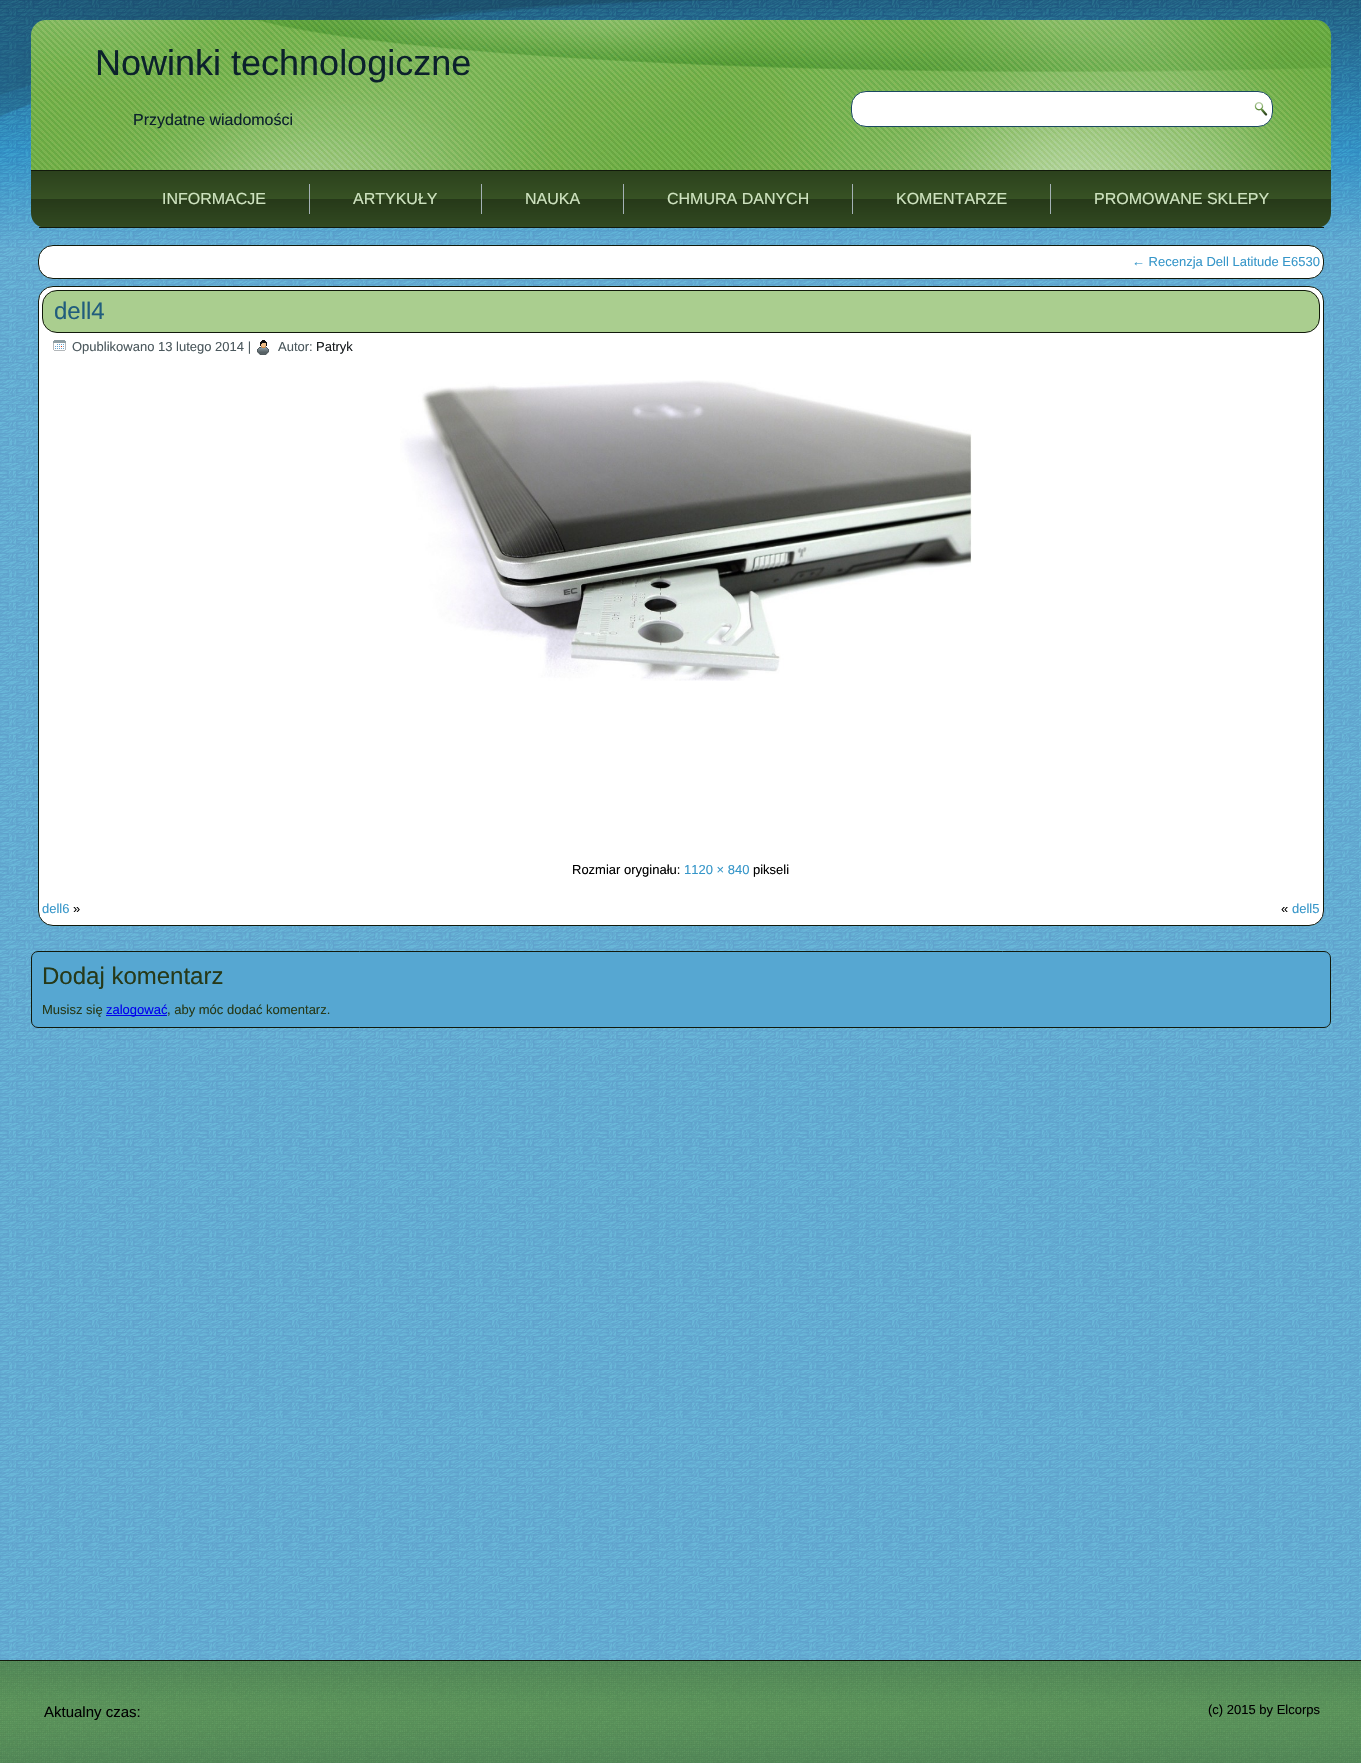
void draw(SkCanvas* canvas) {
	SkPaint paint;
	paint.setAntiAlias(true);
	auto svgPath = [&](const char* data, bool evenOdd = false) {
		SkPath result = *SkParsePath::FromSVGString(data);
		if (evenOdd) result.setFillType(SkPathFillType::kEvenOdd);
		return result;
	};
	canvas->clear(0xffffffff);
	canvas->drawImageRect(SkImages::DeferredFromEncodedData(SkData::MakeFromFileName("img1.png")), SkRect::MakeXYWH(0, 0, 1361, 1763), SkSamplingOptions());
	canvas->drawImageRect(SkImages::DeferredFromEncodedData(SkData::MakeFromFileName("img2.png")), SkRect::MakeXYWH(31, 20, 1300, 150), SkSamplingOptions());
	SkFont f1(fontMgr->matchFamilyStyle("Liberation Sans", SkFontStyle::Normal()), 36);
	f1.setSubpixel(true);
	paint.setColor(0xff0c212c);
	canvas->drawString("Nowinki technologiczne", 95, 75, f1, paint);
	SkFont f2(fontMgr->matchFamilyStyle("Liberation Sans", SkFontStyle::Normal()), 16);
	f2.setSubpixel(true);
	canvas->drawString("Przydatne wiadomości", 133, 125, f2, paint);
	paint.setColor(0xffffffff);
	canvas->drawRoundRect(SkRect::MakeXYWH(851.5, 91.5, 421, 35), 14.5, 14.5, paint);
	paint.setStroke(true);
	paint.setStrokeWidth(1);
	paint.setColor(0xff1a4861);
	canvas->drawRoundRect(SkRect::MakeXYWH(851.5, 91.5, 421, 35), 14.5, 14.5, paint);
	canvas->drawImageRect(SkImages::DeferredFromEncodedData(SkData::MakeFromFileName("img3.png")), SkRect::MakeXYWH(1254, 102, 14, 14), SkSamplingOptions());
	paint.setStroke(false);
	{
		const SkColor colors[] = {0xff2b401c, 0xff375224, 0xff263919, 0xff324a21};
		const float stops[] = {0, 0.5, 0.5, 1};
		const SkPoint ends[] = {{681, 170}, {681, 228}};
		paint.setShader(SkGradientShader::MakeLinear(ends, colors, stops, 4, SkTileMode::kClamp));
		paint.setAlpha(255);
	}
	canvas->drawPath(svgPath("M31 170H1331V213C1331 221.5 1324.5 228 1316 228H46C37.5 228 31 221.5 31 213Z"), paint);
	paint.setShader(nullptr);
	paint.setColor(0xff11190b);
	canvas->drawRect(SkRect::MakeXYWH(31, 170, 1300, 1), paint);
	canvas->drawRect(SkRect::MakeXYWH(39, 227, 1285, 1), paint);
	paint.setColor(0xffcee3bf);
	canvas->drawString("INFORMACJE", 162, 204, f2, paint);
	paint.setColor(0xffa4b1b6);
	canvas->drawRect(SkRect::MakeXYWH(309, 184, 1, 30), paint);
	paint.setColor(0xffcee3bf);
	canvas->drawString("ARTYKUŁY", 353, 204, f2, paint);
	paint.setColor(0xffa4b1b6);
	canvas->drawRect(SkRect::MakeXYWH(481, 184, 1, 30), paint);
	paint.setColor(0xffcee3bf);
	canvas->drawString("NAUKA", 525, 204, f2, paint);
	paint.setColor(0xffa4b1b6);
	canvas->drawRect(SkRect::MakeXYWH(623, 184, 1, 30), paint);
	paint.setColor(0xffcee3bf);
	canvas->drawString("CHMURA DANYCH", 667, 204, f2, paint);
	paint.setColor(0xffa4b1b6);
	canvas->drawRect(SkRect::MakeXYWH(852, 184, 1, 30), paint);
	paint.setColor(0xffcee3bf);
	canvas->drawString("KOMENTARZE", 896, 204, f2, paint);
	paint.setColor(0xffa4b1b6);
	canvas->drawRect(SkRect::MakeXYWH(1050, 184, 1, 30), paint);
	paint.setColor(0xffcee3bf);
	canvas->drawString("PROMOWANE SKLEPY", 1094, 204, f2, paint);
	paint.setColor(0xffffffff);
	canvas->drawRoundRect(SkRect::MakeXYWH(38.5, 245.5, 1285, 33), 14.5, 14.5, paint);
	paint.setStroke(true);
	paint.setColor(0xff11190b);
	canvas->drawRoundRect(SkRect::MakeXYWH(38.5, 245.5, 1285, 33), 14.5, 14.5, paint);
	SkFont f3(fontMgr->matchFamilyStyle("Liberation Sans", SkFontStyle::Normal()), 13);
	f3.setSubpixel(true);
	paint.setStroke(false);
	paint.setColor(0xff3696c9);
	canvas->drawString("← Recenzja Dell Latitude E6530", 1132, 266, f3, paint);
	paint.setColor(0xffffffff);
	canvas->drawRoundRect(SkRect::MakeXYWH(38.5, 286.5, 1285, 639), 14.5, 14.5, paint);
	paint.setStroke(true);
	paint.setColor(0xff11190b);
	canvas->drawRoundRect(SkRect::MakeXYWH(38.5, 286.5, 1285, 639), 14.5, 14.5, paint);
	paint.setStroke(false);
	paint.setColor(0xffaace8f);
	canvas->drawRoundRect(SkRect::MakeXYWH(42.5, 290.5, 1277, 42), 14.5, 14.5, paint);
	paint.setStroke(true);
	paint.setColor(0xff11190b);
	canvas->drawRoundRect(SkRect::MakeXYWH(42.5, 290.5, 1277, 42), 14.5, 14.5, paint);
	SkFont f4(fontMgr->matchFamilyStyle("Liberation Sans", SkFontStyle::Normal()), 24);
	f4.setSubpixel(true);
	paint.setStroke(false);
	paint.setColor(0xff215d7d);
	canvas->drawString("dell4", 54, 319, f4, paint);
	canvas->drawImageRect(SkImages::DeferredFromEncodedData(SkData::MakeFromFileName("img4.png")), SkRect::MakeXYWH(53, 340, 13, 11), SkSamplingOptions());
	paint.setColor(0xff4b585d);
	canvas->drawString("Opublikowano 13 lutego 2014 |", 72, 351, f3, paint);
	canvas->drawImageRect(SkImages::DeferredFromEncodedData(SkData::MakeFromFileName("img5.png")), SkRect::MakeXYWH(257, 340, 12, 15), SkSamplingOptions());
	canvas->drawString("Autor:", 278, 351, f3, paint);
	paint.setColor(0xff191d1f);
	canvas->drawString("Patryk", 316, 351, f3, paint);
	canvas->drawImageRect(SkImages::DeferredFromEncodedData(SkData::MakeFromFileName("img6.png")), SkRect::MakeXYWH(400, 380, 572, 301), SkSamplingOptions());
	paint.setColor(0xff000000);
	canvas->drawString("Rozmiar oryginału:", 572, 874, f3, paint);
	paint.setColor(0xff3696c9);
	canvas->drawString("1120 × 840", 684, 874, f3, paint);
	paint.setColor(0xff000000);
	canvas->drawString("pikseli", 753, 874, f3, paint);
	paint.setColor(0xff3696c9);
	canvas->drawString("dell6", 42, 913, f3, paint);
	paint.setColor(0xff000000);
	canvas->drawString("»", 73, 913, f3, paint);
	canvas->drawString("«", 1281, 913, f3, paint);
	paint.setColor(0xff3696c9);
	canvas->drawString("dell5", 1292, 913, f3, paint);
	paint.setColor(0xff56a7d2);
	canvas->drawRoundRect(SkRect::MakeXYWH(31.5, 951.5, 1299, 76), 6.5, 6.5, paint);
	paint.setStroke(true);
	paint.setColor(0xff11190b);
	canvas->drawRoundRect(SkRect::MakeXYWH(31.5, 951.5, 1299, 76), 6.5, 6.5, paint);
	paint.setStroke(false);
	paint.setColor(0xff263919);
	canvas->drawString("Dodaj komentarz", 42, 984, f4, paint);
	canvas->drawString("Musisz się", 42, 1014, f3, paint);
	paint.setColor(0xff0000ee);
	canvas->drawRect(SkRect::MakeXYWH(106, 1015, 61, 1), paint);
	canvas->drawString("zalogować", 106, 1014, f3, paint);
	paint.setColor(0xff263919);
	canvas->drawString(", aby móc dodać komentarz.", 167, 1014, f3, paint);
	canvas->drawImageRect(SkImages::DeferredFromEncodedData(SkData::MakeFromFileName("img7.png")), SkRect::MakeXYWH(0, 1661, 1361, 102), SkSamplingOptions());
	paint.setColor(0xff11190b);
	canvas->drawRect(SkRect::MakeXYWH(0, 1660, 1361, 1), paint);
	SkFont f5(fontMgr->matchFamilyStyle("Liberation Sans", SkFontStyle::Normal()), 15);
	f5.setSubpixel(true);
	paint.setColor(0xff000000);
	canvas->drawString("Aktualny czas:", 44, 1717, f5, paint);
	canvas->drawString("(c) 2015 by Elcorps", 1208, 1714, f3, paint);
}
